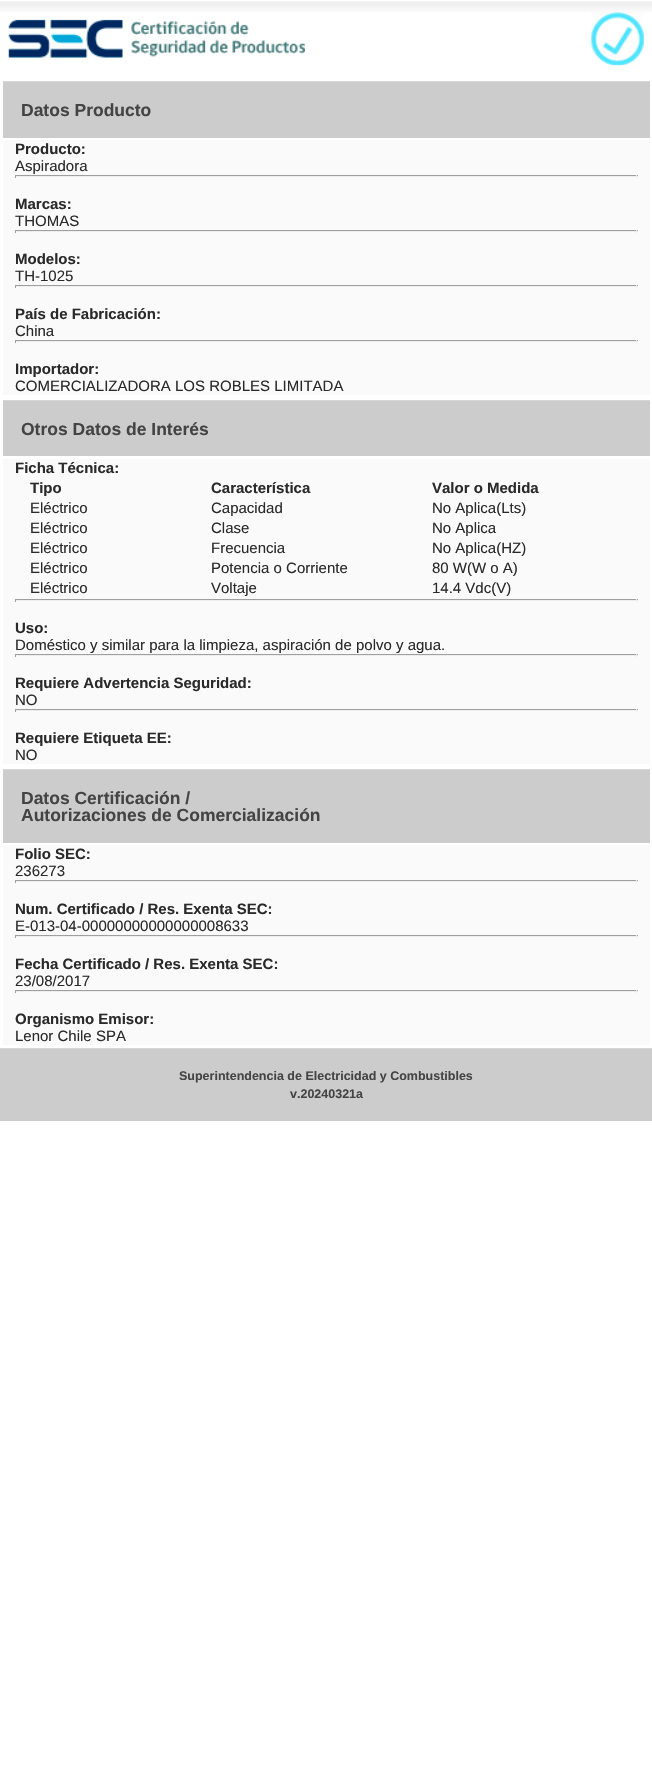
void draw(SkCanvas* canvas) {
	SkPaint paint;
	paint.setAntiAlias(true);
	canvas->clear(0xffffffff);
	canvas->drawImageRect(SkImages::DeferredFromEncodedData(SkData::MakeFromFileName("img1.png")), SkRect::MakeXYWH(0, 1, 652, 11), SkSamplingOptions());
	canvas->drawImageRect(SkImages::DeferredFromEncodedData(SkData::MakeFromFileName("img2.png")), SkRect::MakeXYWH(8, 19, 297, 39), SkSamplingOptions());
	canvas->drawImageRect(SkImages::DeferredFromEncodedData(SkData::MakeFromFileName("img3.png")), SkRect::MakeXYWH(591, 12, 53, 54), SkSamplingOptions());
	paint.setColor(0xffcccccc);
	canvas->drawRect(SkRect::MakeXYWH(3, 82, 647, 56), paint);
	paint.setColor(0xffd6d6d6);
	canvas->drawRect(SkRect::MakeXYWH(3, 81, 647, 1), paint);
	SkFont f1(fontMgr->matchFamilyStyle("Liberation Sans", SkFontStyle::Bold()), 17.5);
	f1.setSubpixel(true);
	paint.setColor(0xff444444);
	canvas->drawString("Datos Producto", 21, 116, f1, paint);
	paint.setColor(0xfffafafa);
	canvas->drawRect(SkRect::MakeXYWH(3, 140, 647, 255), paint);
	SkFont f2(fontMgr->matchFamilyStyle("Liberation Sans", SkFontStyle::Bold()), 15);
	f2.setSubpixel(true);
	paint.setColor(0xff2a2a2a);
	canvas->drawString("Producto:", 15, 154, f2, paint);
	SkFont f3(fontMgr->matchFamilyStyle("Liberation Sans", SkFontStyle::Normal()), 15);
	f3.setSubpixel(true);
	canvas->drawString("Aspiradora", 15, 171, f3, paint);
	paint.setColor(0xff9f9f9f);
	canvas->drawRect(SkRect::MakeXYWH(15, 175, 623, 1), paint);
	paint.setColor(0xffeeeeee);
	canvas->drawRect(SkRect::MakeXYWH(636, 175, 1, 3), paint);
	canvas->drawRect(SkRect::MakeXYWH(15, 176, 623, 1), paint);
	paint.setColor(0xff9f9f9f);
	canvas->drawRect(SkRect::MakeXYWH(15, 175, 1, 3), paint);
	paint.setColor(0xff2a2a2a);
	canvas->drawString("Marcas:", 15, 209, f2, paint);
	canvas->drawString("THOMAS", 15, 226, f3, paint);
	paint.setColor(0xff9f9f9f);
	canvas->drawRect(SkRect::MakeXYWH(15, 230, 623, 1), paint);
	paint.setColor(0xffeeeeee);
	canvas->drawRect(SkRect::MakeXYWH(636, 230, 1, 3), paint);
	canvas->drawRect(SkRect::MakeXYWH(15, 231, 623, 1), paint);
	paint.setColor(0xff9f9f9f);
	canvas->drawRect(SkRect::MakeXYWH(15, 230, 1, 3), paint);
	paint.setColor(0xff2a2a2a);
	canvas->drawString("Modelos:", 15, 264, f2, paint);
	canvas->drawString("TH-1025", 15, 281, f3, paint);
	paint.setColor(0xff9f9f9f);
	canvas->drawRect(SkRect::MakeXYWH(15, 285, 623, 1), paint);
	paint.setColor(0xffeeeeee);
	canvas->drawRect(SkRect::MakeXYWH(636, 285, 1, 3), paint);
	canvas->drawRect(SkRect::MakeXYWH(15, 286, 623, 1), paint);
	paint.setColor(0xff9f9f9f);
	canvas->drawRect(SkRect::MakeXYWH(15, 285, 1, 3), paint);
	paint.setColor(0xff2a2a2a);
	canvas->drawString("País de Fabricación:", 15, 319, f2, paint);
	canvas->drawString("China", 15, 336, f3, paint);
	paint.setColor(0xff9f9f9f);
	canvas->drawRect(SkRect::MakeXYWH(15, 340, 623, 1), paint);
	paint.setColor(0xffeeeeee);
	canvas->drawRect(SkRect::MakeXYWH(636, 340, 1, 3), paint);
	canvas->drawRect(SkRect::MakeXYWH(15, 341, 623, 1), paint);
	paint.setColor(0xff9f9f9f);
	canvas->drawRect(SkRect::MakeXYWH(15, 340, 1, 3), paint);
	paint.setColor(0xff2a2a2a);
	canvas->drawString("Importador:", 15, 374, f2, paint);
	canvas->drawString("COMERCIALIZADORA LOS ROBLES LIMITADA", 15, 391, f3, paint);
	paint.setColor(0xffcccccc);
	canvas->drawRect(SkRect::MakeXYWH(3, 401, 647, 55), paint);
	paint.setColor(0xffd6d6d6);
	canvas->drawRect(SkRect::MakeXYWH(3, 400, 647, 1), paint);
	paint.setColor(0xff444444);
	canvas->drawString("Otros Datos de Interés", 21, 435, f1, paint);
	paint.setColor(0xfffafafa);
	canvas->drawRect(SkRect::MakeXYWH(3, 459, 647, 305), paint);
	paint.setColor(0xff2a2a2a);
	canvas->drawString("Ficha Técnica:", 15, 473, f2, paint);
	canvas->drawString("Tipo", 30, 493, f2, paint);
	canvas->drawString("Característica", 211, 493, f2, paint);
	canvas->drawString("Valor o Medida", 432, 493, f2, paint);
	canvas->drawString("Eléctrico", 30, 513, f3, paint);
	canvas->drawString("Capacidad", 211, 513, f3, paint);
	canvas->drawString("No Aplica(Lts)", 432, 513, f3, paint);
	canvas->drawString("Eléctrico", 30, 533, f3, paint);
	canvas->drawString("Clase", 211, 533, f3, paint);
	canvas->drawString("No Aplica", 432, 533, f3, paint);
	canvas->drawString("Eléctrico", 30, 553, f3, paint);
	canvas->drawString("Frecuencia", 211, 553, f3, paint);
	canvas->drawString("No Aplica(HZ)", 432, 553, f3, paint);
	canvas->drawString("Eléctrico", 30, 573, f3, paint);
	canvas->drawString("Potencia o Corriente", 211, 573, f3, paint);
	canvas->drawString("80 W(W o A)", 432, 573, f3, paint);
	canvas->drawString("Eléctrico", 30, 593, f3, paint);
	canvas->drawString("Voltaje", 211, 593, f3, paint);
	canvas->drawString("14.4 Vdc(V)", 432, 593, f3, paint);
	paint.setColor(0xff9f9f9f);
	canvas->drawRect(SkRect::MakeXYWH(15, 599, 623, 1), paint);
	paint.setColor(0xffeeeeee);
	canvas->drawRect(SkRect::MakeXYWH(636, 599, 1, 3), paint);
	canvas->drawRect(SkRect::MakeXYWH(15, 600, 623, 1), paint);
	paint.setColor(0xff9f9f9f);
	canvas->drawRect(SkRect::MakeXYWH(15, 599, 1, 3), paint);
	paint.setColor(0xff2a2a2a);
	canvas->drawString("Uso:", 15, 633, f2, paint);
	canvas->drawString("Doméstico y similar para la limpieza, aspiración de polvo y agua.", 15, 650, f3, paint);
	paint.setColor(0xff9f9f9f);
	canvas->drawRect(SkRect::MakeXYWH(15, 654, 623, 1), paint);
	paint.setColor(0xffeeeeee);
	canvas->drawRect(SkRect::MakeXYWH(636, 654, 1, 3), paint);
	canvas->drawRect(SkRect::MakeXYWH(15, 655, 623, 1), paint);
	paint.setColor(0xff9f9f9f);
	canvas->drawRect(SkRect::MakeXYWH(15, 654, 1, 3), paint);
	paint.setColor(0xff2a2a2a);
	canvas->drawString("Requiere Advertencia Seguridad:", 15, 688, f2, paint);
	canvas->drawString("NO", 15, 705, f3, paint);
	paint.setColor(0xff9f9f9f);
	canvas->drawRect(SkRect::MakeXYWH(15, 709, 623, 1), paint);
	paint.setColor(0xffeeeeee);
	canvas->drawRect(SkRect::MakeXYWH(636, 709, 1, 3), paint);
	canvas->drawRect(SkRect::MakeXYWH(15, 710, 623, 1), paint);
	paint.setColor(0xff9f9f9f);
	canvas->drawRect(SkRect::MakeXYWH(15, 709, 1, 3), paint);
	paint.setColor(0xff2a2a2a);
	canvas->drawString("Requiere Etiqueta EE:", 15, 743, f2, paint);
	canvas->drawString("NO", 15, 760, f3, paint);
	paint.setColor(0xffcccccc);
	canvas->drawRect(SkRect::MakeXYWH(3, 770, 647, 73), paint);
	paint.setColor(0xffd6d6d6);
	canvas->drawRect(SkRect::MakeXYWH(3, 769, 647, 1), paint);
	paint.setColor(0xff444444);
	canvas->drawString("Datos Certificación /", 21, 804, f1, paint);
	canvas->drawString("Autorizaciones de Comercialización", 21, 821, f1, paint);
	paint.setColor(0xfffafafa);
	canvas->drawRect(SkRect::MakeXYWH(3, 845, 647, 200), paint);
	paint.setColor(0xff2a2a2a);
	canvas->drawString("Folio SEC:", 15, 859, f2, paint);
	canvas->drawString("236273", 15, 876, f3, paint);
	paint.setColor(0xff9f9f9f);
	canvas->drawRect(SkRect::MakeXYWH(15, 880, 623, 1), paint);
	paint.setColor(0xffeeeeee);
	canvas->drawRect(SkRect::MakeXYWH(636, 880, 1, 3), paint);
	canvas->drawRect(SkRect::MakeXYWH(15, 881, 623, 1), paint);
	paint.setColor(0xff9f9f9f);
	canvas->drawRect(SkRect::MakeXYWH(15, 880, 1, 3), paint);
	paint.setColor(0xff2a2a2a);
	canvas->drawString("Num. Certificado / Res. Exenta SEC:", 15, 914, f2, paint);
	canvas->drawString("E-013-04-00000000000000008633", 15, 931, f3, paint);
	paint.setColor(0xff9f9f9f);
	canvas->drawRect(SkRect::MakeXYWH(15, 935, 623, 1), paint);
	paint.setColor(0xffeeeeee);
	canvas->drawRect(SkRect::MakeXYWH(636, 935, 1, 3), paint);
	canvas->drawRect(SkRect::MakeXYWH(15, 936, 623, 1), paint);
	paint.setColor(0xff9f9f9f);
	canvas->drawRect(SkRect::MakeXYWH(15, 935, 1, 3), paint);
	paint.setColor(0xff2a2a2a);
	canvas->drawString("Fecha Certificado / Res. Exenta SEC:", 15, 969, f2, paint);
	canvas->drawString("23/08/2017", 15, 986, f3, paint);
	paint.setColor(0xff9f9f9f);
	canvas->drawRect(SkRect::MakeXYWH(15, 990, 623, 1), paint);
	paint.setColor(0xffeeeeee);
	canvas->drawRect(SkRect::MakeXYWH(636, 990, 1, 3), paint);
	canvas->drawRect(SkRect::MakeXYWH(15, 991, 623, 1), paint);
	paint.setColor(0xff9f9f9f);
	canvas->drawRect(SkRect::MakeXYWH(15, 990, 1, 3), paint);
	paint.setColor(0xff2a2a2a);
	canvas->drawString("Organismo Emisor:", 15, 1024, f2, paint);
	canvas->drawString("Lenor Chile SPA", 15, 1041, f3, paint);
	paint.setColor(0xffcccccc);
	canvas->drawRect(SkRect::MakeXYWH(0, 1049, 652, 72), paint);
	paint.setColor(0xffd6d6d6);
	canvas->drawRect(SkRect::MakeXYWH(0, 1048, 652, 1), paint);
	SkFont f4(fontMgr->matchFamilyStyle("Liberation Sans", SkFontStyle::Bold()), 12.5);
	f4.setSubpixel(true);
	paint.setColor(0xff444444);
	canvas->drawString("Superintendencia de Electricidad y Combustibles", 179, 1080, f4, paint);
	canvas->drawString("v.20240321a", 290, 1098, f4, paint);
}
